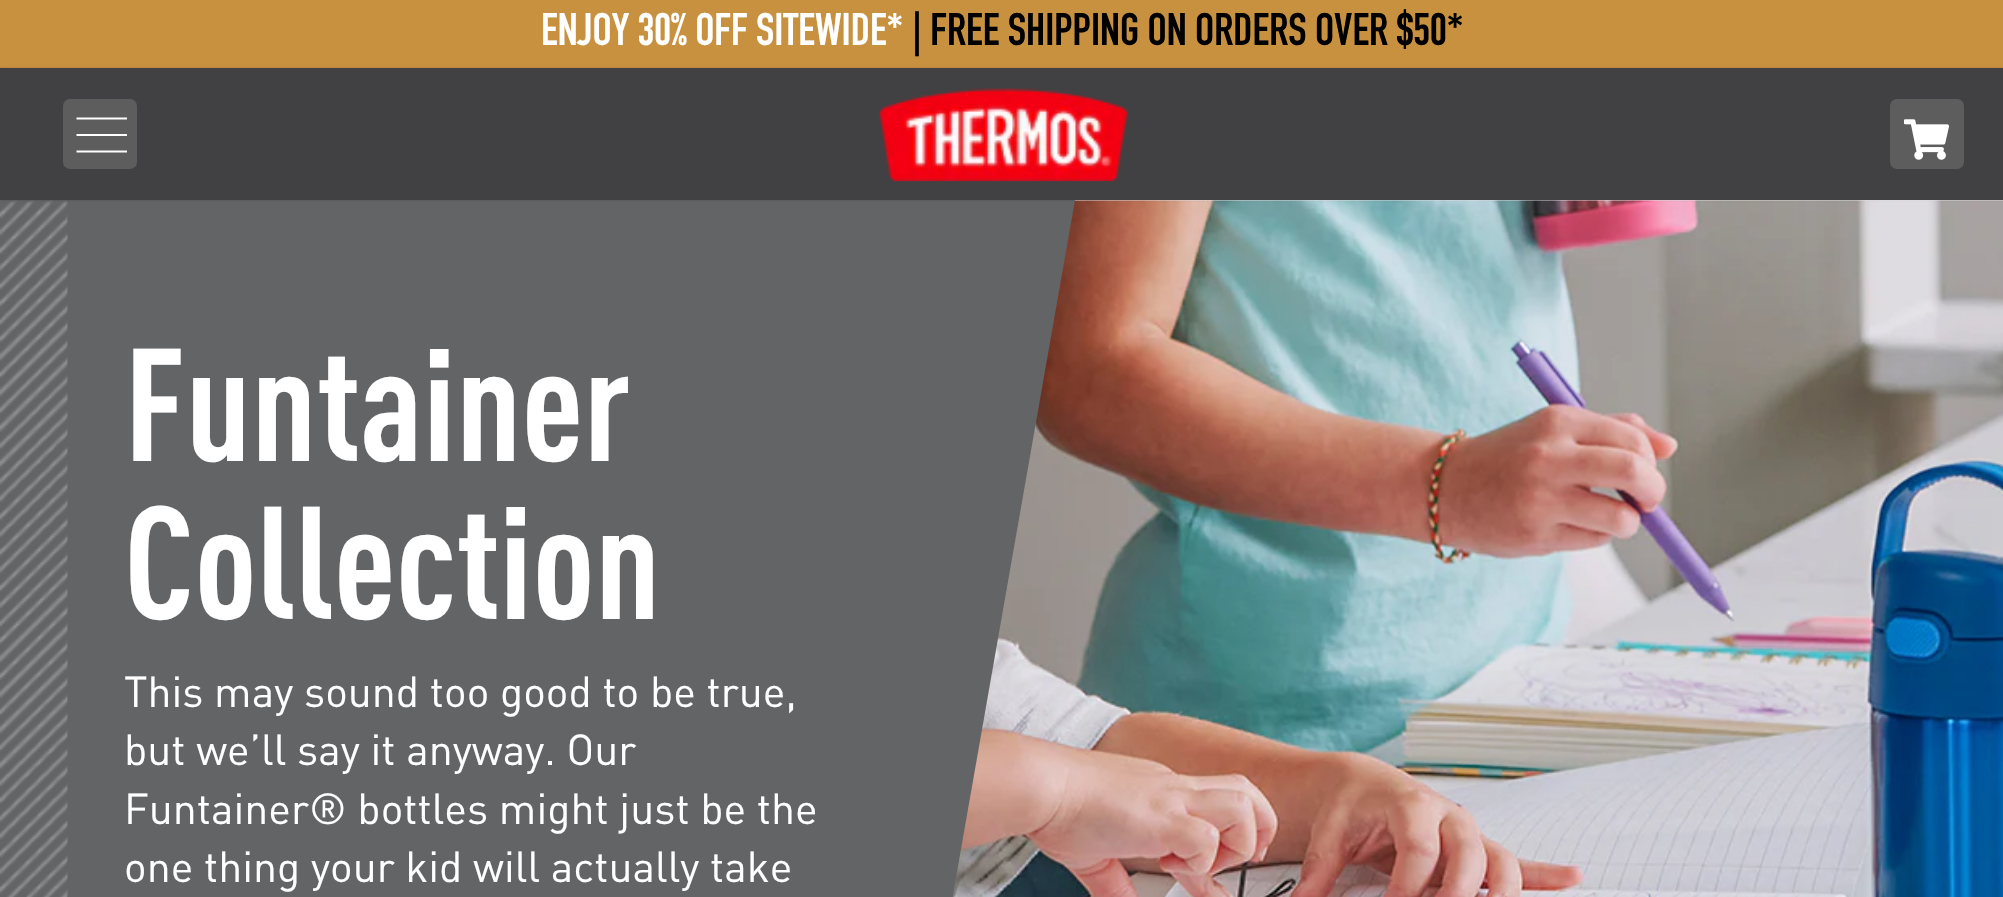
void draw(SkCanvas* canvas) {
	SkPaint paint;
	paint.setAntiAlias(true);
	auto svgPath = [&](const char* data, bool evenOdd = false) {
		SkPath result = *SkParsePath::FromSVGString(data);
		if (evenOdd) result.setFillType(SkPathFillType::kEvenOdd);
		return result;
	};
	canvas->clear(0xffffffff);
	paint.setColor(0xff414042);
	canvas->drawRect(SkRect::MakeXYWH(0, 68, 2003, 132), paint);
	paint.setColor(0xffc79140);
	canvas->drawRect(SkRect::MakeXYWH(0, 0, 2003, 68), paint);
	SkFont f1(fontMgr->matchFamilyStyle("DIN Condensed", SkFontStyle::Bold()), 45);
	f1.setSubpixel(true);
	paint.setColor(0xffffffff);
	canvas->drawString("ENJOY 30% OFF SITEWIDE*", 541, 45, f1, paint);
	paint.setColor(0xff000000);
	canvas->drawString("| FREE SHIPPING ON ORDERS OVER $50*", 912, 45, f1, paint);
	paint.setColor(0xff636466);
	canvas->drawRect(SkRect::MakeXYWH(0, 200, 895, 697), paint);
	canvas->drawImageRect(SkImages::DeferredFromEncodedData(SkData::MakeFromFileName("img3.png")), SkRect::MakeXYWH(0, 200, 68, 697), SkSamplingOptions());
	canvas->drawImageRect(SkImages::DeferredFromEncodedData(SkData::MakeFromFileName("img4.png")), SkRect::MakeXYWH(952, 200, 1051, 697), SkSamplingOptions());
	canvas->drawPath(svgPath("M895 200H1075L905 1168H725Z"), paint);
	canvas->save();
	canvas->clipPath(svgPath("M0 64H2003V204H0ZM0 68H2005V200H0Z", true), true);
	paint.setColor(0x33000000);
	paint.setMaskFilter(SkMaskFilter::MakeBlur(kNormal_SkBlurStyle, 1));
	canvas->drawRect(SkRect::MakeXYWH(0, 68, 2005, 132), paint);
	paint.setMaskFilter(nullptr);
	canvas->restore();
	paint.setColor(0xff5e5d5e);
	canvas->drawRoundRect(SkRect::MakeXYWH(63, 99, 74, 70), 7, 7, paint);
	paint.setStroke(true);
	paint.setStrokeWidth(2);
	paint.setColor(0xffffffff);
	canvas->drawPath(svgPath("M76.5 118.5H127M76.5 135H127M76.5 151.5H127"), paint);
	canvas->drawImageRect(SkImages::DeferredFromEncodedData(SkData::MakeFromFileName("img1.png")), SkRect::MakeXYWH(879, 88, 249, 94), SkSamplingOptions());
	paint.setStroke(false);
	paint.setColor(0xff5e5d5e);
	canvas->drawRoundRect(SkRect::MakeXYWH(1890, 99, 74, 70), 7, 7, paint);
	canvas->drawImageRect(SkImages::DeferredFromEncodedData(SkData::MakeFromFileName("img2.png")), SkRect::MakeXYWH(1904, 119, 45, 41), SkSamplingOptions());
	SkFont f2(fontMgr->matchFamilyStyle("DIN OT", SkFontStyle::Bold()), 157.5);
	f2.setSubpixel(true);
	paint.setColor(0xffffffff);
	canvas->drawString("Funtainer", 124, 461, f2, paint);
	canvas->drawString("Collection", 124, 619, f2, paint);
	SkFont f3(fontMgr->matchFamilyStyle("DINOT", SkFontStyle::Normal()), 42.75);
	f3.setSubpixel(true);
	canvas->drawString("This may sound too good to be true,", 124, 707, f3, paint);
	canvas->drawString("but we’ll say it anyway. Our", 124, 765, f3, paint);
	canvas->drawString("Funtainer® bottles might just be the", 124, 824, f3, paint);
	canvas->drawString("one thing your kid will actually take", 124, 882, f3, paint);
}
